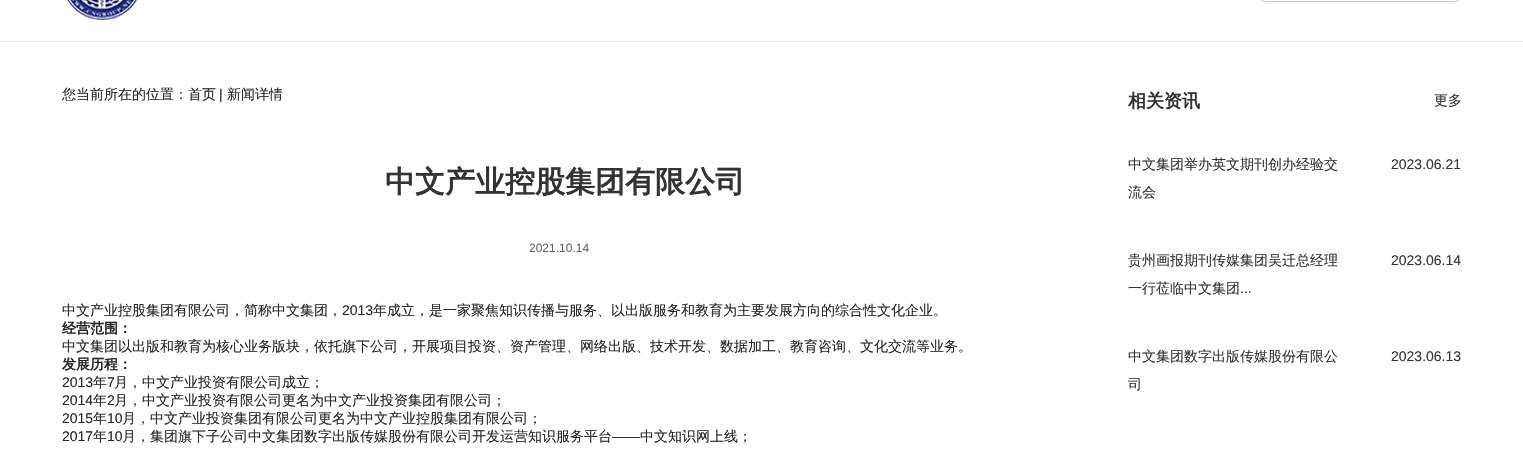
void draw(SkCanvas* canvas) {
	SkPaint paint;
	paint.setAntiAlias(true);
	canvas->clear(0xffffffff);
	paint.setStroke(true);
	paint.setStrokeWidth(1);
	paint.setColor(0xffcccccc);
	canvas->drawRoundRect(SkRect::MakeXYWH(1258.5, -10.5, 203, 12), 9.5, 9.5, paint);
	canvas->drawImageRect(SkImages::DeferredFromEncodedData(SkData::MakeFromFileName("img1.png")), SkRect::MakeXYWH(67, 0, 70, 20), SkSamplingOptions());
	paint.setStroke(false);
	paint.setColor(0xffeeeeee);
	canvas->drawRect(SkRect::MakeXYWH(0, 41, 1523, 1), paint);
	SkFont f1(fontMgr->matchFamilyStyle("WenQuanYi Zen Hei", SkFontStyle(500, SkFontStyle::kNormal_Width, SkFontStyle::kUpright_Slant)), 14);
	f1.setSubpixel(true);
	paint.setColor(0xff262626);
	canvas->drawString("您当前所在的位置：首页", 62, 99, f1, paint);
	SkFont f2(fontMgr->matchFamilyStyle("Liberation Sans", SkFontStyle::Normal()), 14);
	f2.setSubpixel(true);
	canvas->drawString("|", 219, 99, f2, paint);
	canvas->drawString("新闻详情", 227, 99, f1, paint);
	SkFont f3(fontMgr->matchFamilyStyle("WenQuanYi Zen Hei", SkFontStyle::Bold()), 30);
	f3.setSubpixel(true);
	paint.setColor(0xff333333);
	canvas->drawString("中文产业控股集团有限公司", 385, 192, f3, paint);
	SkFont f4(fontMgr->matchFamilyStyle("Liberation Sans", SkFontStyle::Normal()), 12);
	f4.setSubpixel(true);
	paint.setColor(0xff666666);
	canvas->drawString("2021.10.14", 529, 252, f4, paint);
	paint.setColor(0xff262626);
	canvas->drawString("中文产业控股集团有限公司，简称中文集团，", 62, 315, f1, paint);
	canvas->drawString("2013", 342, 315, f2, paint);
	canvas->drawString("年成立，是一家聚焦知识传播与服务、以出版服务和教育为主要发展方向的综合性文化企业。", 373, 315, f1, paint);
	SkFont f5(fontMgr->matchFamilyStyle("WenQuanYi Zen Hei", SkFontStyle::Bold()), 14);
	f5.setSubpixel(true);
	canvas->drawString("经营范围：", 62, 333, f5, paint);
	canvas->drawString("中文集团以出版和教育为核心业务版块，依托旗下公司，开展项目投资、资产管理、网络出版、技术开发、数据加工、教育咨询、文化交流等业务。", 62, 351, f1, paint);
	canvas->drawString("发展历程：", 62, 369, f5, paint);
	canvas->drawString("2013", 62, 387, f2, paint);
	canvas->drawString("年", 93, 387, f1, paint);
	canvas->drawString("7", 107, 387, f2, paint);
	canvas->drawString("月，中文产业投资有限公司成立；", 114, 387, f1, paint);
	canvas->drawString("2014", 62, 405, f2, paint);
	canvas->drawString("年", 93, 405, f1, paint);
	canvas->drawString("2", 107, 405, f2, paint);
	canvas->drawString("月，中文产业投资有限公司更名为中文产业投资集团有限公司；", 114, 405, f1, paint);
	canvas->drawString("2015", 62, 423, f2, paint);
	canvas->drawString("年", 93, 423, f1, paint);
	canvas->drawString("10", 107, 423, f2, paint);
	canvas->drawString("月，中文产业投资集团有限公司更名为中文产业控股集团有限公司；", 122, 423, f1, paint);
	canvas->drawString("2017", 62, 441, f2, paint);
	canvas->drawString("年", 93, 441, f1, paint);
	canvas->drawString("10", 107, 441, f2, paint);
	canvas->drawString("月，集团旗下子公司中文集团数字出版传媒股份有限公司开发运营知识服务平台", 122, 441, f1, paint);
	canvas->drawString("——", 612, 441, f2, paint);
	canvas->drawString("中文知识网上线；", 640, 441, f1, paint);
	SkFont f6(fontMgr->matchFamilyStyle("WenQuanYi Zen Hei", SkFontStyle::Bold()), 18);
	f6.setSubpixel(true);
	paint.setColor(0xff333333);
	canvas->drawString("相关资讯", 1128, 107, f6, paint);
	canvas->drawString("更多", 1434, 105, f1, paint);
	canvas->drawString("中文集团举办英文期刊创办经验交", 1128, 169, f1, paint);
	canvas->drawString("流会", 1128, 197, f1, paint);
	canvas->drawString("2023.06.21", 1391, 169, f2, paint);
	canvas->drawString("贵州画报期刊传媒集团吴迁总经理", 1128, 265, f1, paint);
	canvas->drawString("一行莅临中文集团", 1128, 293, f1, paint);
	canvas->drawString("...", 1240, 293, f2, paint);
	canvas->drawString("2023.06.14", 1391, 265, f2, paint);
	canvas->drawString("中文集团数字出版传媒股份有限公", 1128, 361, f1, paint);
	canvas->drawString("司", 1128, 389, f1, paint);
	canvas->drawString("2023.06.13", 1391, 361, f2, paint);
}
